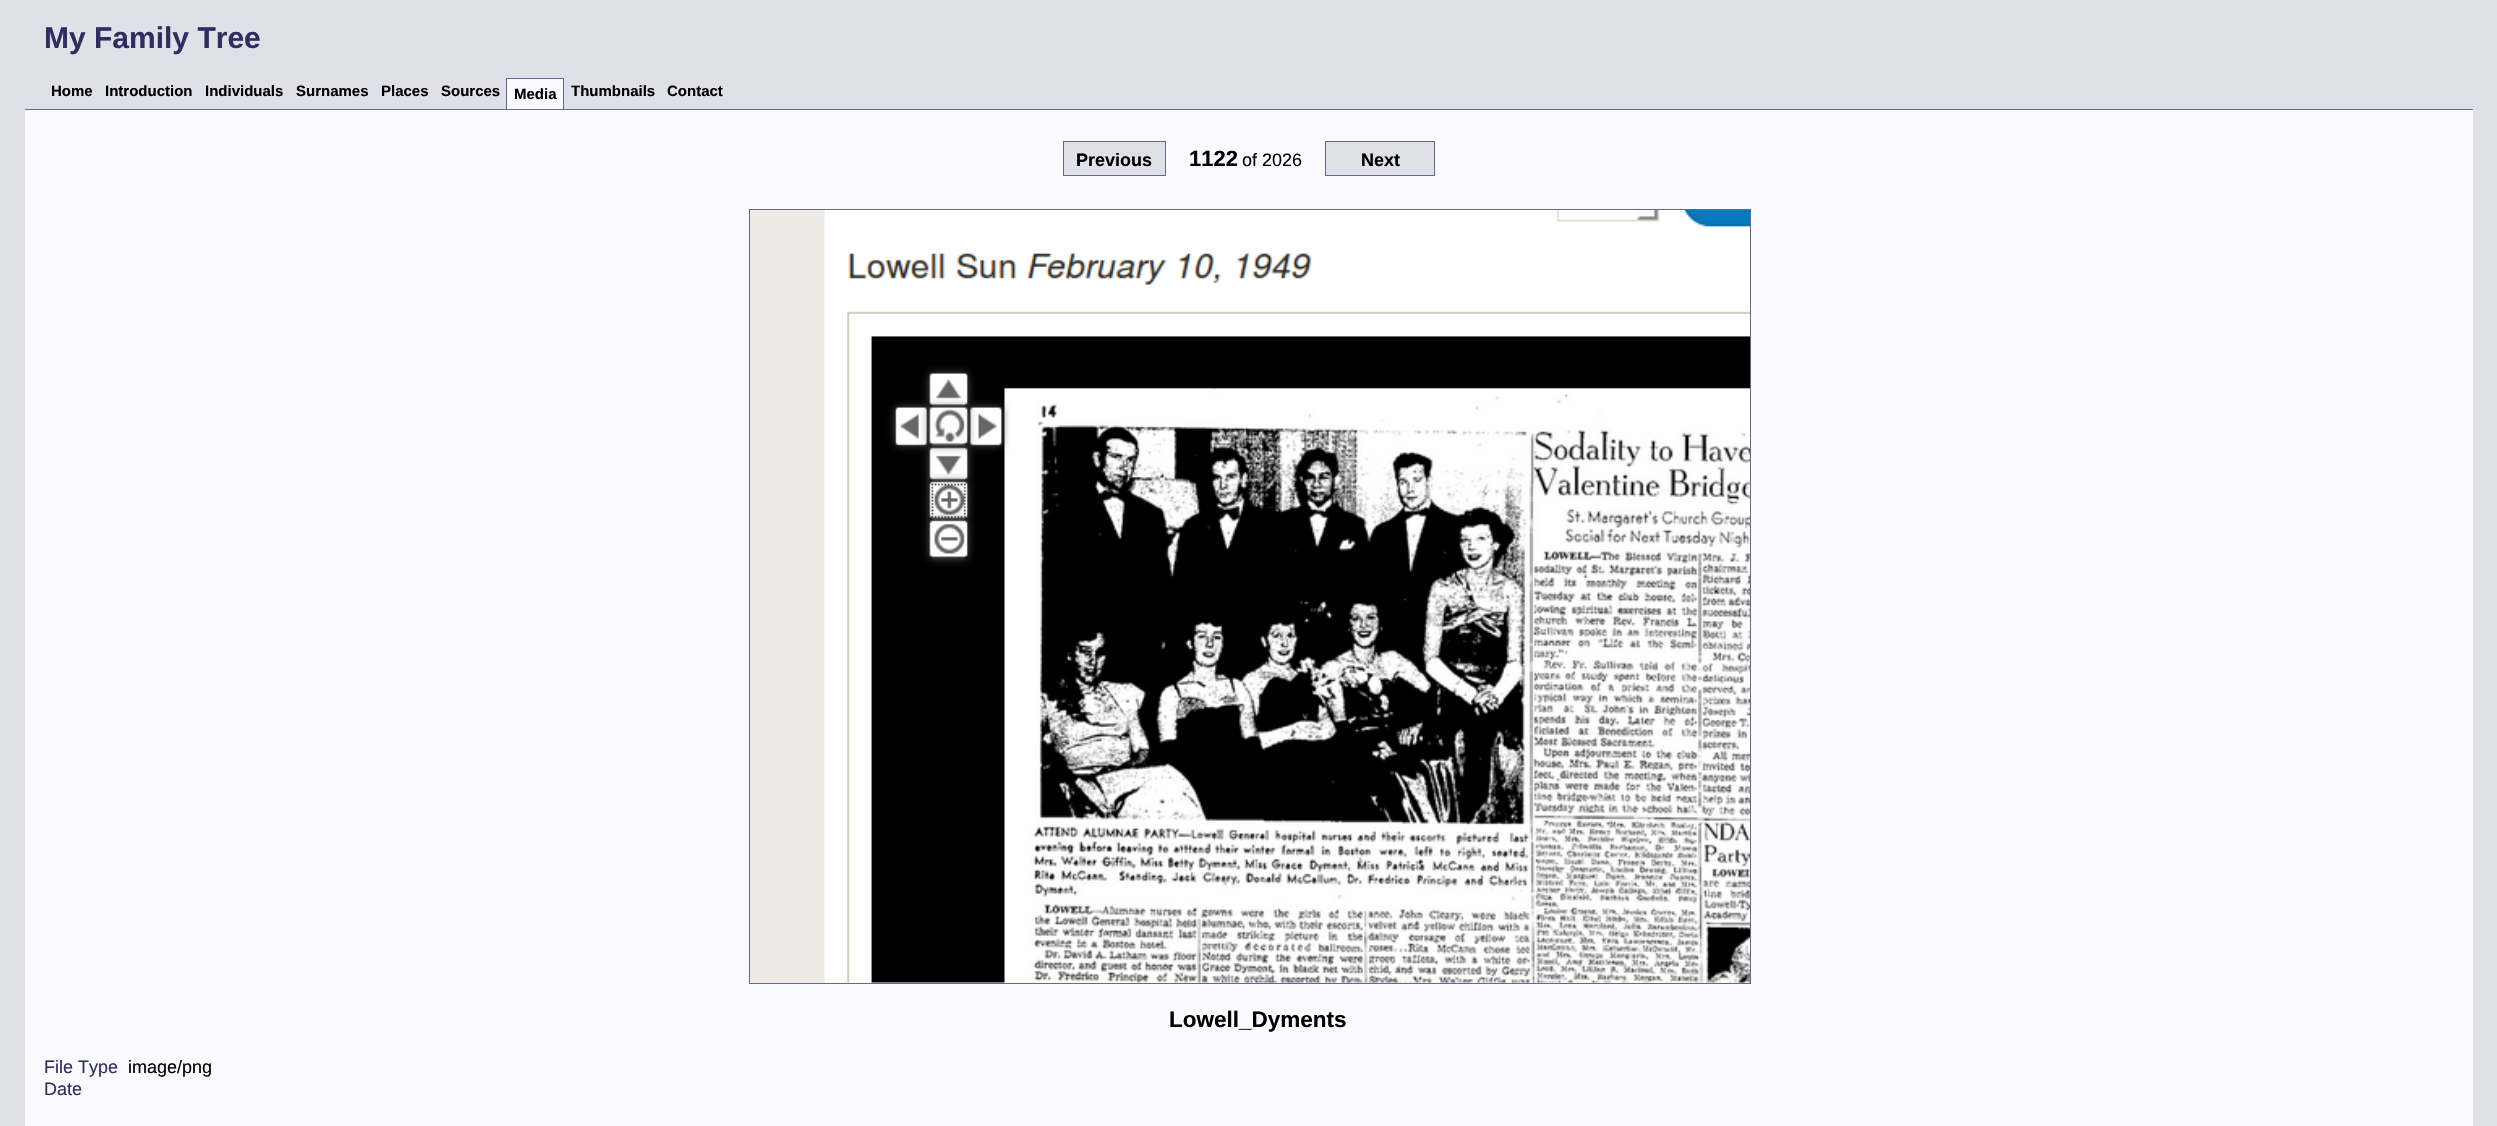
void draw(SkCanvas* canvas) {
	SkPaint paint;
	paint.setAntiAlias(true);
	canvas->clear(0xffe0e0e9);
	SkFont f1(fontMgr->matchFamilyStyle("Liberation Sans", SkFontStyle::Bold()), 30);
	f1.setSubpixel(true);
	paint.setColor(0xff2e2e61);
	canvas->drawString("My Family Tree", 44, 48, f1, paint);
	SkFont f2(fontMgr->matchFamilyStyle("Liberation Sans", SkFontStyle::Bold()), 15);
	f2.setSubpixel(true);
	paint.setColor(0xff000000);
	canvas->drawString("Home", 51, 96, f2, paint);
	canvas->drawString("Introduction", 105, 96, f2, paint);
	canvas->drawString("Individuals", 205, 96, f2, paint);
	canvas->drawString("Surnames", 296, 96, f2, paint);
	canvas->drawString("Places", 381, 96, f2, paint);
	canvas->drawString("Sources", 441, 96, f2, paint);
	paint.setColor(0xfffafaff);
	canvas->drawRect(SkRect::MakeXYWH(507, 79, 56, 30), paint);
	paint.setColor(0xff666699);
	canvas->drawRect(SkRect::MakeXYWH(506, 78, 58, 1), paint);
	canvas->drawRect(SkRect::MakeXYWH(563, 78, 1, 31), paint);
	canvas->drawRect(SkRect::MakeXYWH(506, 78, 1, 31), paint);
	paint.setColor(0xff000000);
	canvas->drawString("Media", 514, 99, f2, paint);
	canvas->drawString("Thumbnails", 571, 96, f2, paint);
	canvas->drawString("Contact", 667, 96, f2, paint);
	paint.setColor(0xfffafaff);
	canvas->drawRect(SkRect::MakeXYWH(25, 110, 2448, 1016), paint);
	paint.setColor(0xff666699);
	canvas->drawRect(SkRect::MakeXYWH(25, 109, 2448, 1), paint);
	paint.setColor(0xffe0e0e9);
	canvas->drawRect(SkRect::MakeXYWH(1063.5, 141.5, 102, 34), paint);
	paint.setStroke(true);
	paint.setStrokeWidth(1);
	paint.setColor(0xff666699);
	canvas->drawRect(SkRect::MakeXYWH(1063.5, 141.5, 102, 34), paint);
	SkFont f3(fontMgr->matchFamilyStyle("Liberation Sans", SkFontStyle::Bold()), 18);
	f3.setSubpixel(true);
	paint.setStroke(false);
	paint.setColor(0xff000000);
	canvas->drawString("Previous", 1076, 166, f3, paint);
	SkFont f4(fontMgr->matchFamilyStyle("Liberation Sans", SkFontStyle::Bold()), 22);
	f4.setSubpixel(true);
	canvas->drawString("1122", 1189, 166, f4, paint);
	SkFont f5(fontMgr->matchFamilyStyle("Liberation Sans", SkFontStyle::Normal()), 18);
	f5.setSubpixel(true);
	canvas->drawString("of 2026", 1242, 166, f5, paint);
	paint.setColor(0xffe0e0e9);
	canvas->drawRect(SkRect::MakeXYWH(1325.5, 141.5, 109, 34), paint);
	paint.setStroke(true);
	paint.setColor(0xff666699);
	canvas->drawRect(SkRect::MakeXYWH(1325.5, 141.5, 109, 34), paint);
	paint.setStroke(false);
	paint.setColor(0xff000000);
	canvas->drawString("Next", 1361, 166, f3, paint);
	paint.setStroke(true);
	paint.setColor(0xff666699);
	canvas->drawRect(SkRect::MakeXYWH(749.5, 209.5, 1001, 774), paint);
	canvas->drawImageRect(SkImages::DeferredFromEncodedData(SkData::MakeFromFileName("img1.png")), SkRect::MakeXYWH(750, 210, 1000, 773), SkSamplingOptions());
	SkFont f6(fontMgr->matchFamilyStyle("Liberation Sans", SkFontStyle::Bold()), 22.5);
	f6.setSubpixel(true);
	paint.setStroke(false);
	paint.setColor(0xff000000);
	canvas->drawString("Lowell_Dyments", 1169, 1027, f6, paint);
	paint.setColor(0xff2e2e61);
	canvas->drawString("File Type", 44, 1073, f5, paint);
	paint.setColor(0xff000000);
	canvas->drawString("image/png", 128, 1073, f5, paint);
	paint.setColor(0xff2e2e61);
	canvas->drawString("Date", 44, 1095, f5, paint);
}
